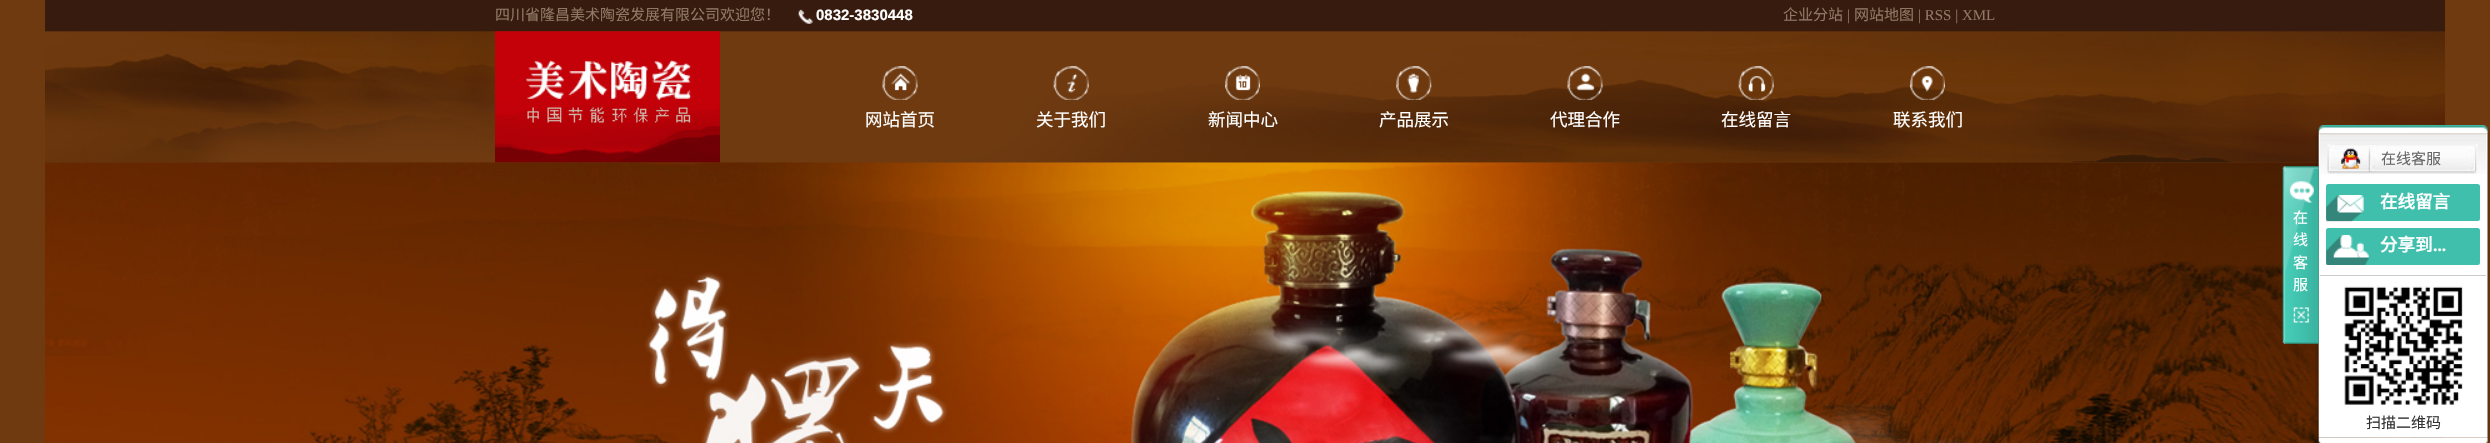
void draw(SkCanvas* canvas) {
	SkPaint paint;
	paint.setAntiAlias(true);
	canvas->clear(0xff6f3a10);
	canvas->drawImageRect(SkImages::DeferredFromEncodedData(SkData::MakeFromFileName("img1.png")), SkRect::MakeXYWH(45, 0, 2400, 163), SkSamplingOptions());
	SkFont f1(fontMgr->matchFamilyStyle("Noto Sans CJK SC", SkFontStyle::Normal()), 15);
	f1.setSubpixel(true);
	paint.setColor(0xff8f7864);
	canvas->drawString("四川省隆昌美术陶瓷发展有限公司欢迎您！", 495, 20, f1, paint);
	canvas->drawImageRect(SkImages::DeferredFromEncodedData(SkData::MakeFromFileName("img2.png")), SkRect::MakeXYWH(798, 9, 15, 15), SkSamplingOptions());
	SkFont f2(fontMgr->matchFamilyStyle("Liberation Sans", SkFontStyle::Bold()), 15);
	f2.setSubpixel(true);
	paint.setColor(0xffffffff);
	canvas->drawString("0832-3830448", 816, 20, f2, paint);
	paint.setColor(0xff8f7864);
	canvas->drawString("企业分站", 1783, 20, f1, paint);
	SkFont f3(fontMgr->matchFamilyStyle("Liberation Serif", SkFontStyle::Normal()), 15);
	f3.setSubpixel(true);
	canvas->drawString("|", 1847, 20, f3, paint);
	canvas->drawString("网站地图", 1854, 20, f1, paint);
	canvas->drawString("| RSS | XML", 1918, 20, f3, paint);
	canvas->drawImageRect(SkImages::DeferredFromEncodedData(SkData::MakeFromFileName("img3.png")), SkRect::MakeXYWH(495, 31, 225, 132), SkSamplingOptions());
	canvas->drawImageRect(SkImages::DeferredFromEncodedData(SkData::MakeFromFileName("img4.png")), SkRect::MakeXYWH(882, 66, 36, 34), SkSamplingOptions());
	SkFont f4(fontMgr->matchFamilyStyle("Noto Sans CJK SC", SkFontStyle::Normal()), 17.5);
	f4.setSubpixel(true);
	paint.setColor(0xffffffff);
	canvas->drawString("网站首页", 865, 126, f4, paint);
	canvas->drawImageRect(SkImages::DeferredFromEncodedData(SkData::MakeFromFileName("img5.png")), SkRect::MakeXYWH(1053, 66, 36, 34), SkSamplingOptions());
	canvas->drawString("关于我们", 1036, 126, f4, paint);
	canvas->drawImageRect(SkImages::DeferredFromEncodedData(SkData::MakeFromFileName("img6.png")), SkRect::MakeXYWH(1225, 66, 35, 34), SkSamplingOptions());
	canvas->drawString("新闻中心", 1208, 126, f4, paint);
	canvas->drawImageRect(SkImages::DeferredFromEncodedData(SkData::MakeFromFileName("img7.png")), SkRect::MakeXYWH(1396, 66, 36, 34), SkSamplingOptions());
	canvas->drawString("产品展示", 1379, 126, f4, paint);
	canvas->drawImageRect(SkImages::DeferredFromEncodedData(SkData::MakeFromFileName("img8.png")), SkRect::MakeXYWH(1567, 66, 36, 34), SkSamplingOptions());
	canvas->drawString("代理合作", 1550, 126, f4, paint);
	canvas->drawImageRect(SkImages::DeferredFromEncodedData(SkData::MakeFromFileName("img9.png")), SkRect::MakeXYWH(1738, 66, 36, 34), SkSamplingOptions());
	canvas->drawString("在线留言", 1721, 126, f4, paint);
	canvas->drawImageRect(SkImages::DeferredFromEncodedData(SkData::MakeFromFileName("img10.png")), SkRect::MakeXYWH(1910, 66, 35, 34), SkSamplingOptions());
	canvas->drawString("联系我们", 1893, 126, f4, paint);
	canvas->drawImageRect(SkImages::DeferredFromEncodedData(SkData::MakeFromFileName("img13.png")), SkRect::MakeXYWH(2316, 125, 174, 9), SkSamplingOptions());
	canvas->drawImageRect(SkImages::DeferredFromEncodedData(SkData::MakeFromFileName("img22.png")), SkRect::MakeXYWH(45, 162, 2400, 281), SkSamplingOptions());
	canvas->drawImageRect(SkImages::DeferredFromEncodedData(SkData::MakeFromFileName("img14.png")), SkRect::MakeXYWH(2315, 133, 175, 305), SkSamplingOptions());
	canvas->drawImageRect(SkImages::DeferredFromEncodedData(SkData::MakeFromFileName("img11.png")), SkRect::MakeXYWH(2282, 166, 37, 178), SkSamplingOptions());
	canvas->drawString("在", 2293, 223, f1, paint);
	canvas->drawString("线", 2293, 245, f1, paint);
	canvas->drawString("客", 2293, 268, f1, paint);
	canvas->drawString("服", 2293, 290, f1, paint);
	canvas->drawImageRect(SkImages::DeferredFromEncodedData(SkData::MakeFromFileName("img12.png")), SkRect::MakeXYWH(2293, 307, 16, 16), SkSamplingOptions());
	canvas->drawImageRect(SkImages::DeferredFromEncodedData(SkData::MakeFromFileName("img15.png")), SkRect::MakeXYWH(2320, 134, 167, 40), SkSamplingOptions());
	canvas->drawImageRect(SkImages::DeferredFromEncodedData(SkData::MakeFromFileName("img16.png")), SkRect::MakeXYWH(2327, 144, 151, 30), SkSamplingOptions());
	canvas->drawImageRect(SkImages::DeferredFromEncodedData(SkData::MakeFromFileName("img17.png")), SkRect::MakeXYWH(2341, 148, 20, 21), SkSamplingOptions());
	paint.setColor(0xff666666);
	canvas->drawString("在线客服", 2381, 164, f1, paint);
	paint.setColor(0xff40c0ac);
	canvas->drawRoundRect(SkRect::MakeXYWH(2326, 184, 154, 37), 2.5, 2.5, paint);
	canvas->drawImageRect(SkImages::DeferredFromEncodedData(SkData::MakeFromFileName("img18.png")), SkRect::MakeXYWH(2326, 195, 38, 27), SkSamplingOptions());
	SkFont f5(fontMgr->matchFamilyStyle("Noto Sans CJK SC", SkFontStyle::Bold()), 17.5);
	f5.setSubpixel(true);
	paint.setColor(0xffffffff);
	canvas->drawString("在线留言", 2380, 208, f5, paint);
	paint.setColor(0xff40c0ac);
	canvas->drawRoundRect(SkRect::MakeXYWH(2326, 228, 154, 37), 2.5, 2.5, paint);
	canvas->drawImageRect(SkImages::DeferredFromEncodedData(SkData::MakeFromFileName("img19.png")), SkRect::MakeXYWH(2326, 235, 43, 30), SkSamplingOptions());
	paint.setColor(0xffffffff);
	canvas->drawString("分享到", 2380, 251, f5, paint);
	SkFont f6(fontMgr->matchFamilyStyle("Liberation Serif", SkFontStyle::Bold()), 17.5);
	f6.setSubpixel(true);
	canvas->drawString("...", 2433, 251, f6, paint);
	paint.setColor(0xffcccccc);
	canvas->drawRect(SkRect::MakeXYWH(2320, 275, 166, 1), paint);
	canvas->drawImageRect(SkImages::DeferredFromEncodedData(SkData::MakeFromFileName("img20.png")), SkRect::MakeXYWH(2344, 286, 119, 119), SkSamplingOptions());
	paint.setColor(0xff333333);
	canvas->drawString("扫描二维码", 2366, 428, f1, paint);
	canvas->drawImageRect(SkImages::DeferredFromEncodedData(SkData::MakeFromFileName("img21.png")), SkRect::MakeXYWH(2316, 437, 174, 6), SkSamplingOptions());
}
